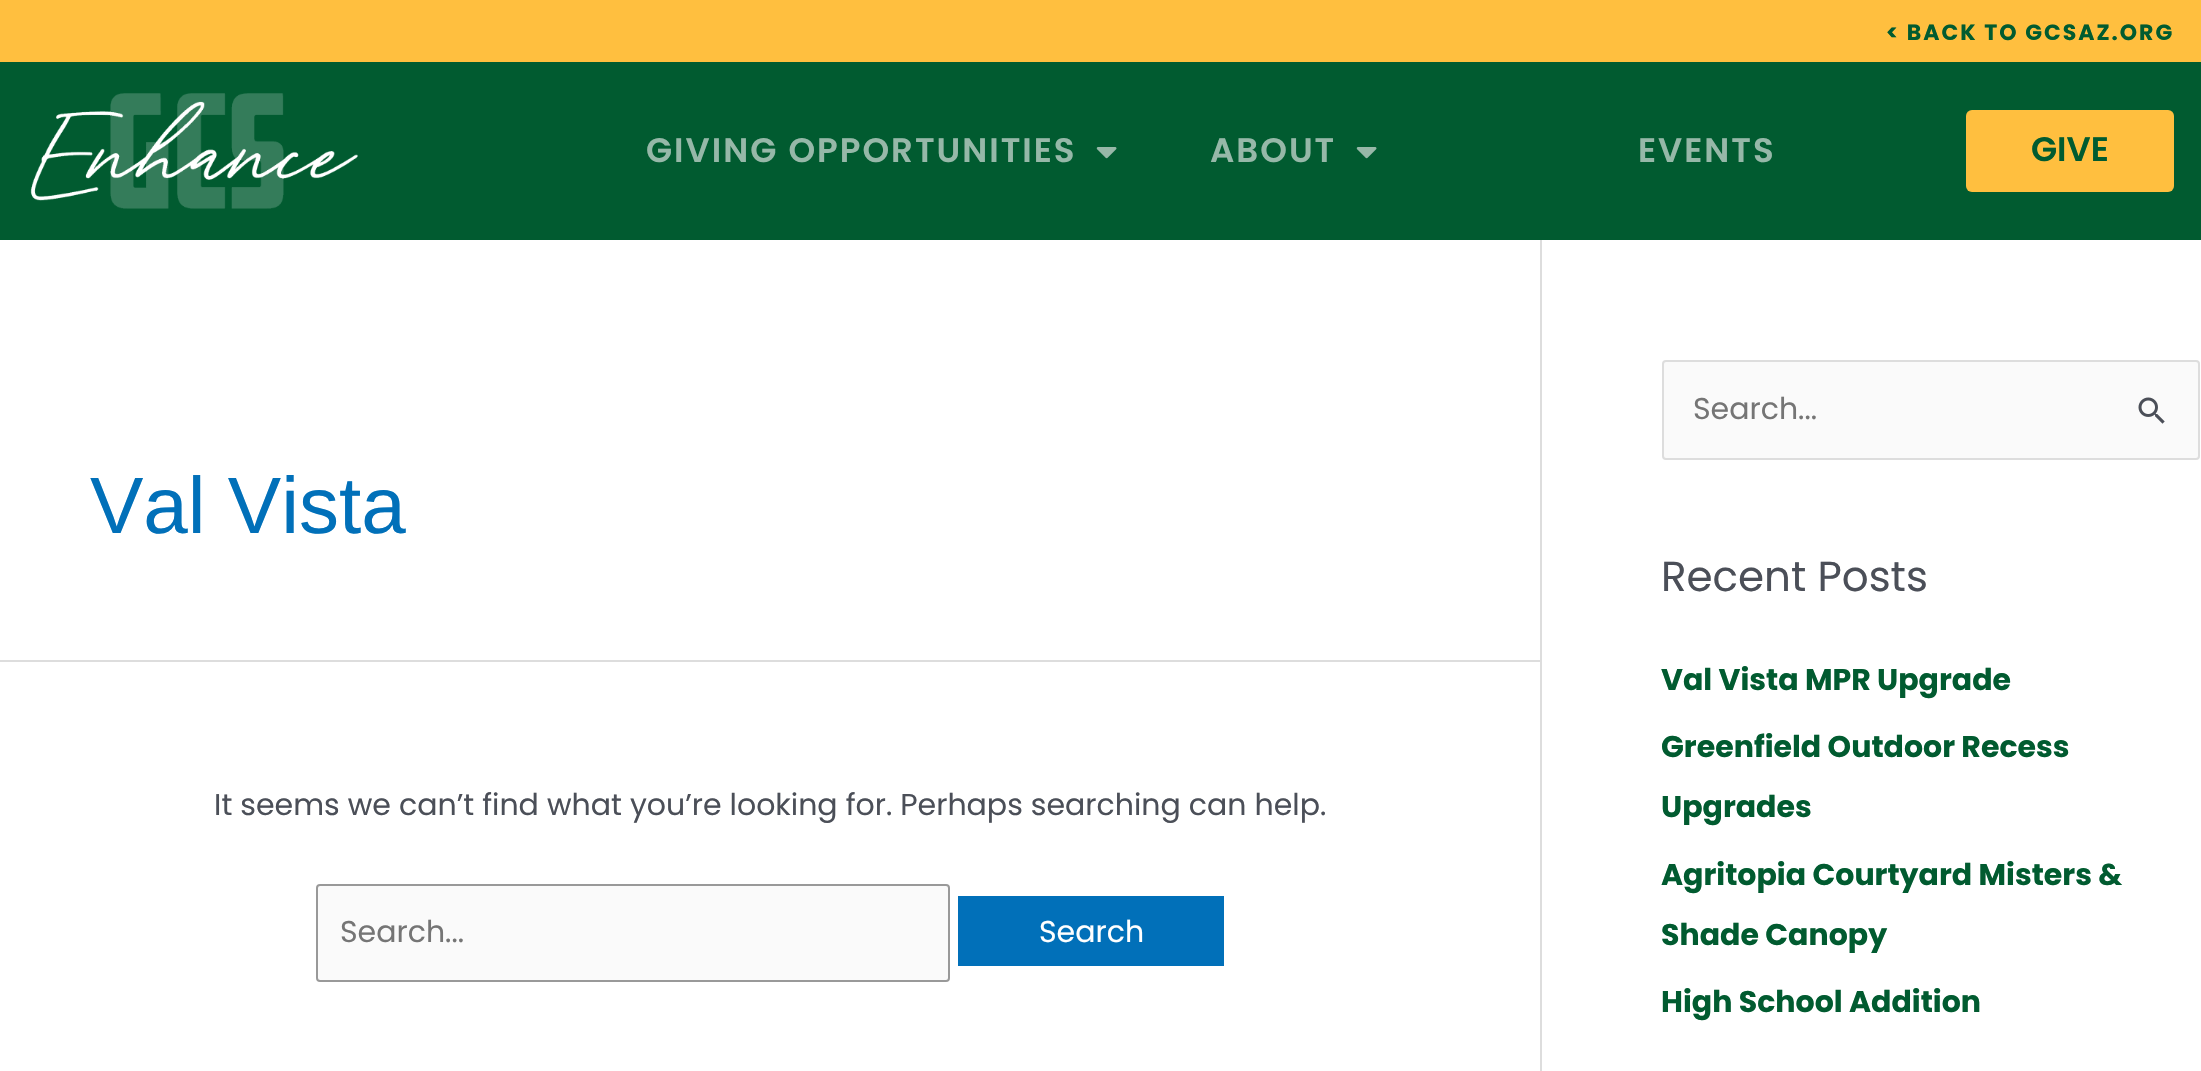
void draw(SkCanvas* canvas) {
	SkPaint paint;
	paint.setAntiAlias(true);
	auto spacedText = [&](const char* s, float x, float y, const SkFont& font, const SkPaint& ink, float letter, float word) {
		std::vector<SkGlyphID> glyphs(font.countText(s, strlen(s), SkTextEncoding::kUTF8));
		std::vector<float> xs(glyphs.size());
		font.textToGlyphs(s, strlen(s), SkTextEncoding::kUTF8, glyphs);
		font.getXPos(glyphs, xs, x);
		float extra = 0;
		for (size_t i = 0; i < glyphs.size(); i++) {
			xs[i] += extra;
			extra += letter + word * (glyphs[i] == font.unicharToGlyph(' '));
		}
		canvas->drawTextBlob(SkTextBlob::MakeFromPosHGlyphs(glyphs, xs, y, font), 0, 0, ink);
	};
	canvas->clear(0xffffffff);
	paint.setColor(0xffffbf3f);
	canvas->drawRect(SkRect::MakeXYWH(0, 0, 2201, 62), paint);
	SkFont f1(fontMgr->matchFamilyStyle("Poppins", SkFontStyle::Bold()), 22);
	f1.setSubpixel(true);
	paint.setColor(0xff015b30);
	spacedText("< BACK TO GCSAZ.ORG", 1886, 40, f1, paint, 2, 0);
	canvas->drawRect(SkRect::MakeXYWH(0, 62, 2201, 178), paint);
	canvas->drawImageRect(SkImages::DeferredFromEncodedData(SkData::MakeFromFileName("img1.png")), SkRect::MakeXYWH(30, 93, 328, 116), SkSamplingOptions());
	SkFont f2(fontMgr->matchFamilyStyle("Poppins", SkFontStyle(600, SkFontStyle::kNormal_Width, SkFontStyle::kUpright_Slant)), 34);
	f2.setSubpixel(true);
	paint.setColor(0xff96b8a8);
	spacedText("GIVING OPPORTUNITIES", 646, 162, f2, paint, 2, 0);
	canvas->drawImageRect(SkImages::DeferredFromEncodedData(SkData::MakeFromFileName("img2.png")), SkRect::MakeXYWH(1096, 147, 21, 12), SkSamplingOptions());
	spacedText("ABOUT", 1210, 162, f2, paint, 2, 0);
	canvas->drawImageRect(SkImages::DeferredFromEncodedData(SkData::MakeFromFileName("img2.png")), SkRect::MakeXYWH(1356, 147, 21, 12), SkSamplingOptions());
	spacedText("EVENTS", 1638, 162, f2, paint, 2, 0);
	paint.setColor(0xffffbf3f);
	canvas->drawRoundRect(SkRect::MakeXYWH(1966, 110, 208, 82), 6, 6, paint);
	paint.setColor(0xff015b30);
	canvas->drawString("GIVE", 2031, 161, f2, paint);
	paint.setColor(0xffdddddd);
	canvas->drawRect(SkRect::MakeXYWH(1540, 240, 2, 831), paint);
	canvas->drawRect(SkRect::MakeXYWH(0, 660, 1540, 2), paint);
	SkFont f3(fontMgr->matchFamilyStyle("Liberation Sans", SkFontStyle::Normal()), 80);
	f3.setSubpixel(true);
	paint.setColor(0xff0170b9);
	canvas->drawString("Val Vista", 90, 533, f3, paint);
	SkFont f4(fontMgr->matchFamilyStyle("Poppins", SkFontStyle::Normal()), 30);
	f4.setSubpixel(true);
	paint.setColor(0xff4b4f58);
	canvas->drawString("It seems we can’t find what you’re looking for. Perhaps searching can help.", 214, 815, f4, paint);
	paint.setColor(0xfffafafa);
	canvas->drawRoundRect(SkRect::MakeXYWH(317, 885, 632, 96), 3, 3, paint);
	paint.setStroke(true);
	paint.setStrokeWidth(2);
	paint.setColor(0xff999999);
	canvas->drawRoundRect(SkRect::MakeXYWH(317, 885, 632, 96), 3, 3, paint);
	paint.setStroke(false);
	paint.setColor(0xff757575);
	canvas->drawString("Search...", 340, 942, f4, paint);
	paint.setColor(0xff0170b9);
	canvas->drawRect(SkRect::MakeXYWH(958, 896, 266, 70), paint);
	paint.setColor(0xffffffff);
	canvas->drawString("Search", 1039, 942, f4, paint);
	paint.setColor(0xfffafafa);
	canvas->drawRoundRect(SkRect::MakeXYWH(1663, 361, 536, 98), 3, 3, paint);
	paint.setStroke(true);
	paint.setColor(0xffdddddd);
	canvas->drawRoundRect(SkRect::MakeXYWH(1663, 361, 536, 98), 3, 3, paint);
	paint.setStroke(false);
	paint.setColor(0xff757575);
	canvas->drawString("Search...", 1693, 419, f4, paint);
	canvas->drawImageRect(SkImages::DeferredFromEncodedData(SkData::MakeFromFileName("img3.png")), SkRect::MakeXYWH(2138, 397, 27, 27), SkSamplingOptions());
	SkFont f5(fontMgr->matchFamilyStyle("Poppins", SkFontStyle::Normal()), 42);
	f5.setSubpixel(true);
	paint.setColor(0xff4b4f58);
	canvas->drawString("Recent Posts", 1661, 591, f5, paint);
	SkFont f6(fontMgr->matchFamilyStyle("Poppins", SkFontStyle::Bold()), 30);
	f6.setSubpixel(true);
	paint.setColor(0xff015b30);
	canvas->drawString("Val Vista MPR Upgrade", 1661, 690, f6, paint);
	canvas->drawString("Greenfield Outdoor Recess", 1661, 757, f6, paint);
	canvas->drawString("Upgrades", 1661, 817, f6, paint);
	canvas->drawString("Agritopia Courtyard Misters &", 1661, 885, f6, paint);
	canvas->drawString("Shade Canopy", 1661, 945, f6, paint);
	canvas->drawString("High School Addition", 1661, 1012, f6, paint);
}
